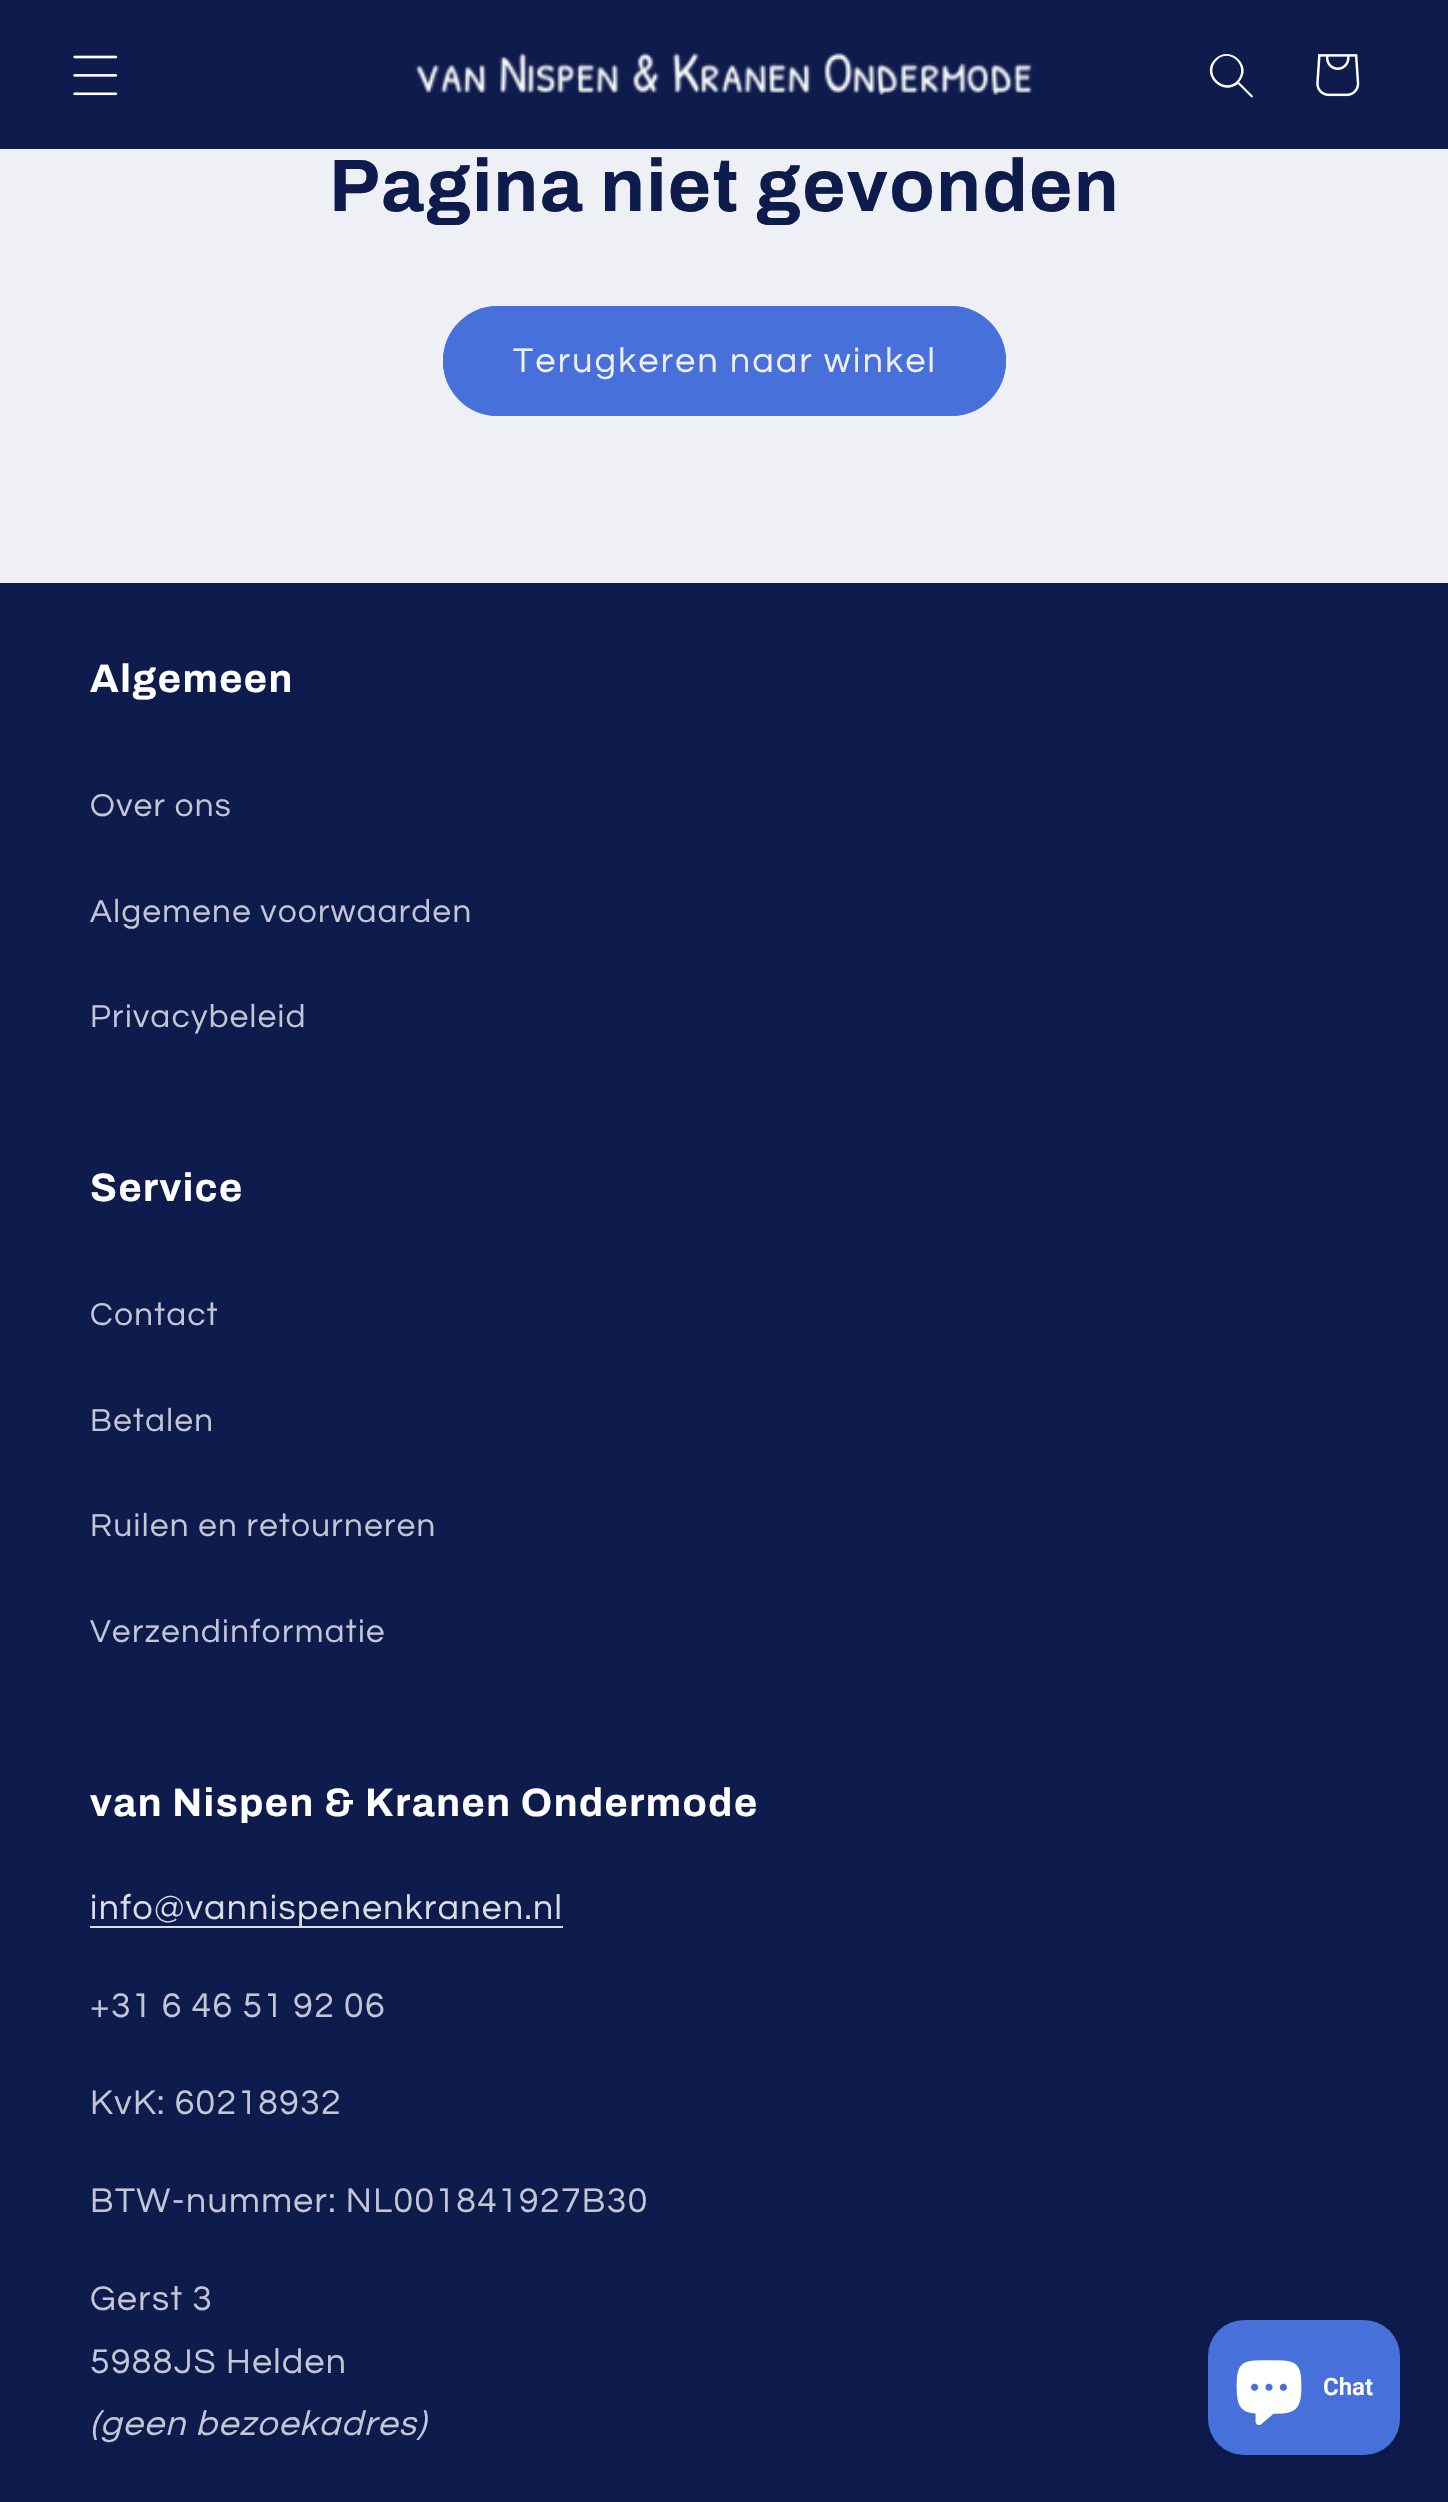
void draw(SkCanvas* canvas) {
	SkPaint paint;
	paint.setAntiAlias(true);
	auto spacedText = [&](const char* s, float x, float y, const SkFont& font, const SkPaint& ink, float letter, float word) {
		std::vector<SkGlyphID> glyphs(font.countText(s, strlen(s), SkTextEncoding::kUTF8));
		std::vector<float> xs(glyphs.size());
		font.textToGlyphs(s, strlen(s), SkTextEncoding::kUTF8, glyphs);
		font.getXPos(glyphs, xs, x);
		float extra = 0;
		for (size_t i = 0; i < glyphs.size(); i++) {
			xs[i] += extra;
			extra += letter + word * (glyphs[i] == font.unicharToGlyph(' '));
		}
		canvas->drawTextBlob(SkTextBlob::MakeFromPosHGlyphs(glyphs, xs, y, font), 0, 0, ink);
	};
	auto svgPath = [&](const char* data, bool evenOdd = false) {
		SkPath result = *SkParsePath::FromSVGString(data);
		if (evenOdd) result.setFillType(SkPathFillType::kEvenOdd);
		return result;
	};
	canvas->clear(0xffeff0f5);
	paint.setColor(0xff0e1b4d);
	canvas->drawRect(SkRect::MakeXYWH(0, 0, 1448, 149), paint);
	canvas->drawImageRect(SkImages::DeferredFromEncodedData(SkData::MakeFromFileName("img1.png")), SkRect::MakeXYWH(73, 55, 45, 41), SkSamplingOptions());
	canvas->drawImageRect(SkImages::DeferredFromEncodedData(SkData::MakeFromFileName("img2.png")), SkRect::MakeXYWH(415, 52, 618, 43), SkSamplingOptions());
	paint.setColor(0xffffffff);
	canvas->drawPath(svgPath("M1237 81C1224 94 1203 74 1217 60C1230 47 1250 67 1237 81M1238 84C1221 97 1200 73 1215 59C1230 44 1254 66 1239 82L1253 96C1253 97 1252 98 1251 97Z", true), paint);
	canvas->drawImageRect(SkImages::DeferredFromEncodedData(SkData::MakeFromFileName("img3.png")), SkRect::MakeXYWH(1316, 54, 44, 43), SkSamplingOptions());
	SkFont f1(fontMgr->matchFamilyStyle("Archivo", SkFontStyle::Bold()), 74.25);
	f1.setSubpixel(true);
	paint.setColor(0xff0e1b4d);
	spacedText("Pagina niet gevonden", 329, 211, f1, paint, 1.5, 0);
	paint.setColor(0xff4770db);
	canvas->drawRoundRect(SkRect::MakeXYWH(443, 306, 563, 110), 55, 55, paint);
	paint.setStroke(true);
	paint.setStrokeWidth(2);
	canvas->drawRoundRect(SkRect::MakeXYWH(444, 307, 561, 108), 54, 54, paint);
	SkFont f2(fontMgr->matchFamilyStyle("Questrial", SkFontStyle::Normal()), 35.5);
	f2.setSubpixel(true);
	paint.setStroke(false);
	paint.setColor(0xffeff0f5);
	spacedText("Terugkeren naar winkel", 513, 372, f2, paint, 2.4, 0);
	paint.setColor(0xff0e1b4d);
	canvas->drawRect(SkRect::MakeXYWH(0, 583, 1448, 1919), paint);
	SkFont f3(fontMgr->matchFamilyStyle("Archivo", SkFontStyle::Bold()), 39.6);
	f3.setSubpixel(true);
	paint.setColor(0xffffffff);
	spacedText("Algemeen", 90, 692, f3, paint, 1.5, 0);
	SkFont f4(fontMgr->matchFamilyStyle("Questrial", SkFontStyle::Normal()), 33);
	f4.setSubpixel(true);
	paint.setColor(0xffc3c6d3);
	spacedText("Over ons", 90, 816, f4, paint, 1.4, 0);
	spacedText("Algemene voorwaarden", 90, 922, f4, paint, 1.4, 0);
	spacedText("Privacybeleid", 90, 1027, f4, paint, 1.4, 0);
	paint.setColor(0xffffffff);
	spacedText("Service", 90, 1201, f3, paint, 1.5, 0);
	paint.setColor(0xffc3c6d3);
	spacedText("Contact", 90, 1325, f4, paint, 1.4, 0);
	spacedText("Betalen", 90, 1431, f4, paint, 1.4, 0);
	spacedText("Ruilen en retourneren", 90, 1536, f4, paint, 1.4, 0);
	spacedText("Verzendinformatie", 90, 1642, f4, paint, 1.4, 0);
	paint.setColor(0xffffffff);
	spacedText("van Nispen & Kranen Ondermode", 90, 1816, f3, paint, 1.5, 0);
	paint.setColor(0xffdbdde4);
	spacedText("info@vannispenenkranen.nl", 90, 1919, f2, paint, 1.4, 0);
	canvas->drawRect(SkRect::MakeXYWH(90, 1926, 473, 2), paint);
	paint.setColor(0xffc3c6d3);
	spacedText("+31 6 46 51 92 06", 90, 2017, f2, paint, 1.4, 0);
	spacedText("KvK: 60218932", 90, 2114, f2, paint, 1.4, 0);
	spacedText("BTW-nummer: NL001841927B30", 90, 2212, f2, paint, 1.4, 0);
	spacedText("Gerst 3", 90, 2310, f2, paint, 1.4, 0);
	spacedText("5988JS Helden", 90, 2373, f2, paint, 1.4, 0);
	SkFont f5(fontMgr->matchFamilyStyle("Questrial", SkFontStyle::Italic()), 35.5);
	f5.setSubpixel(true);
	spacedText("(geen bezoekadres)", 90, 2435, f5, paint, 1.4, 0);
	paint.setColor(0x26000000);
	paint.setMaskFilter(SkMaskFilter::MakeBlur(kNormal_SkBlurStyle, 5.5));
	canvas->drawRoundRect(SkRect::MakeXYWH(1208, 2320, 192, 135), 36, 36, paint);
	paint.setMaskFilter(nullptr);
	paint.setColor(0xff4770db);
	canvas->drawRoundRect(SkRect::MakeXYWH(1208, 2320, 192, 135), 36, 36, paint);
	canvas->drawImageRect(SkImages::DeferredFromEncodedData(SkData::MakeFromFileName("img4.png")), SkRect::MakeXYWH(1236, 2360, 66, 65), SkSamplingOptions());
	SkFont f6(fontMgr->matchFamilyStyle("Roboto", SkFontStyle(600, SkFontStyle::kNormal_Width, SkFontStyle::kUpright_Slant)), 24);
	f6.setSubpixel(true);
	paint.setColor(0xffffffff);
	canvas->drawString("Chat", 1323, 2395, f6, paint);
}
